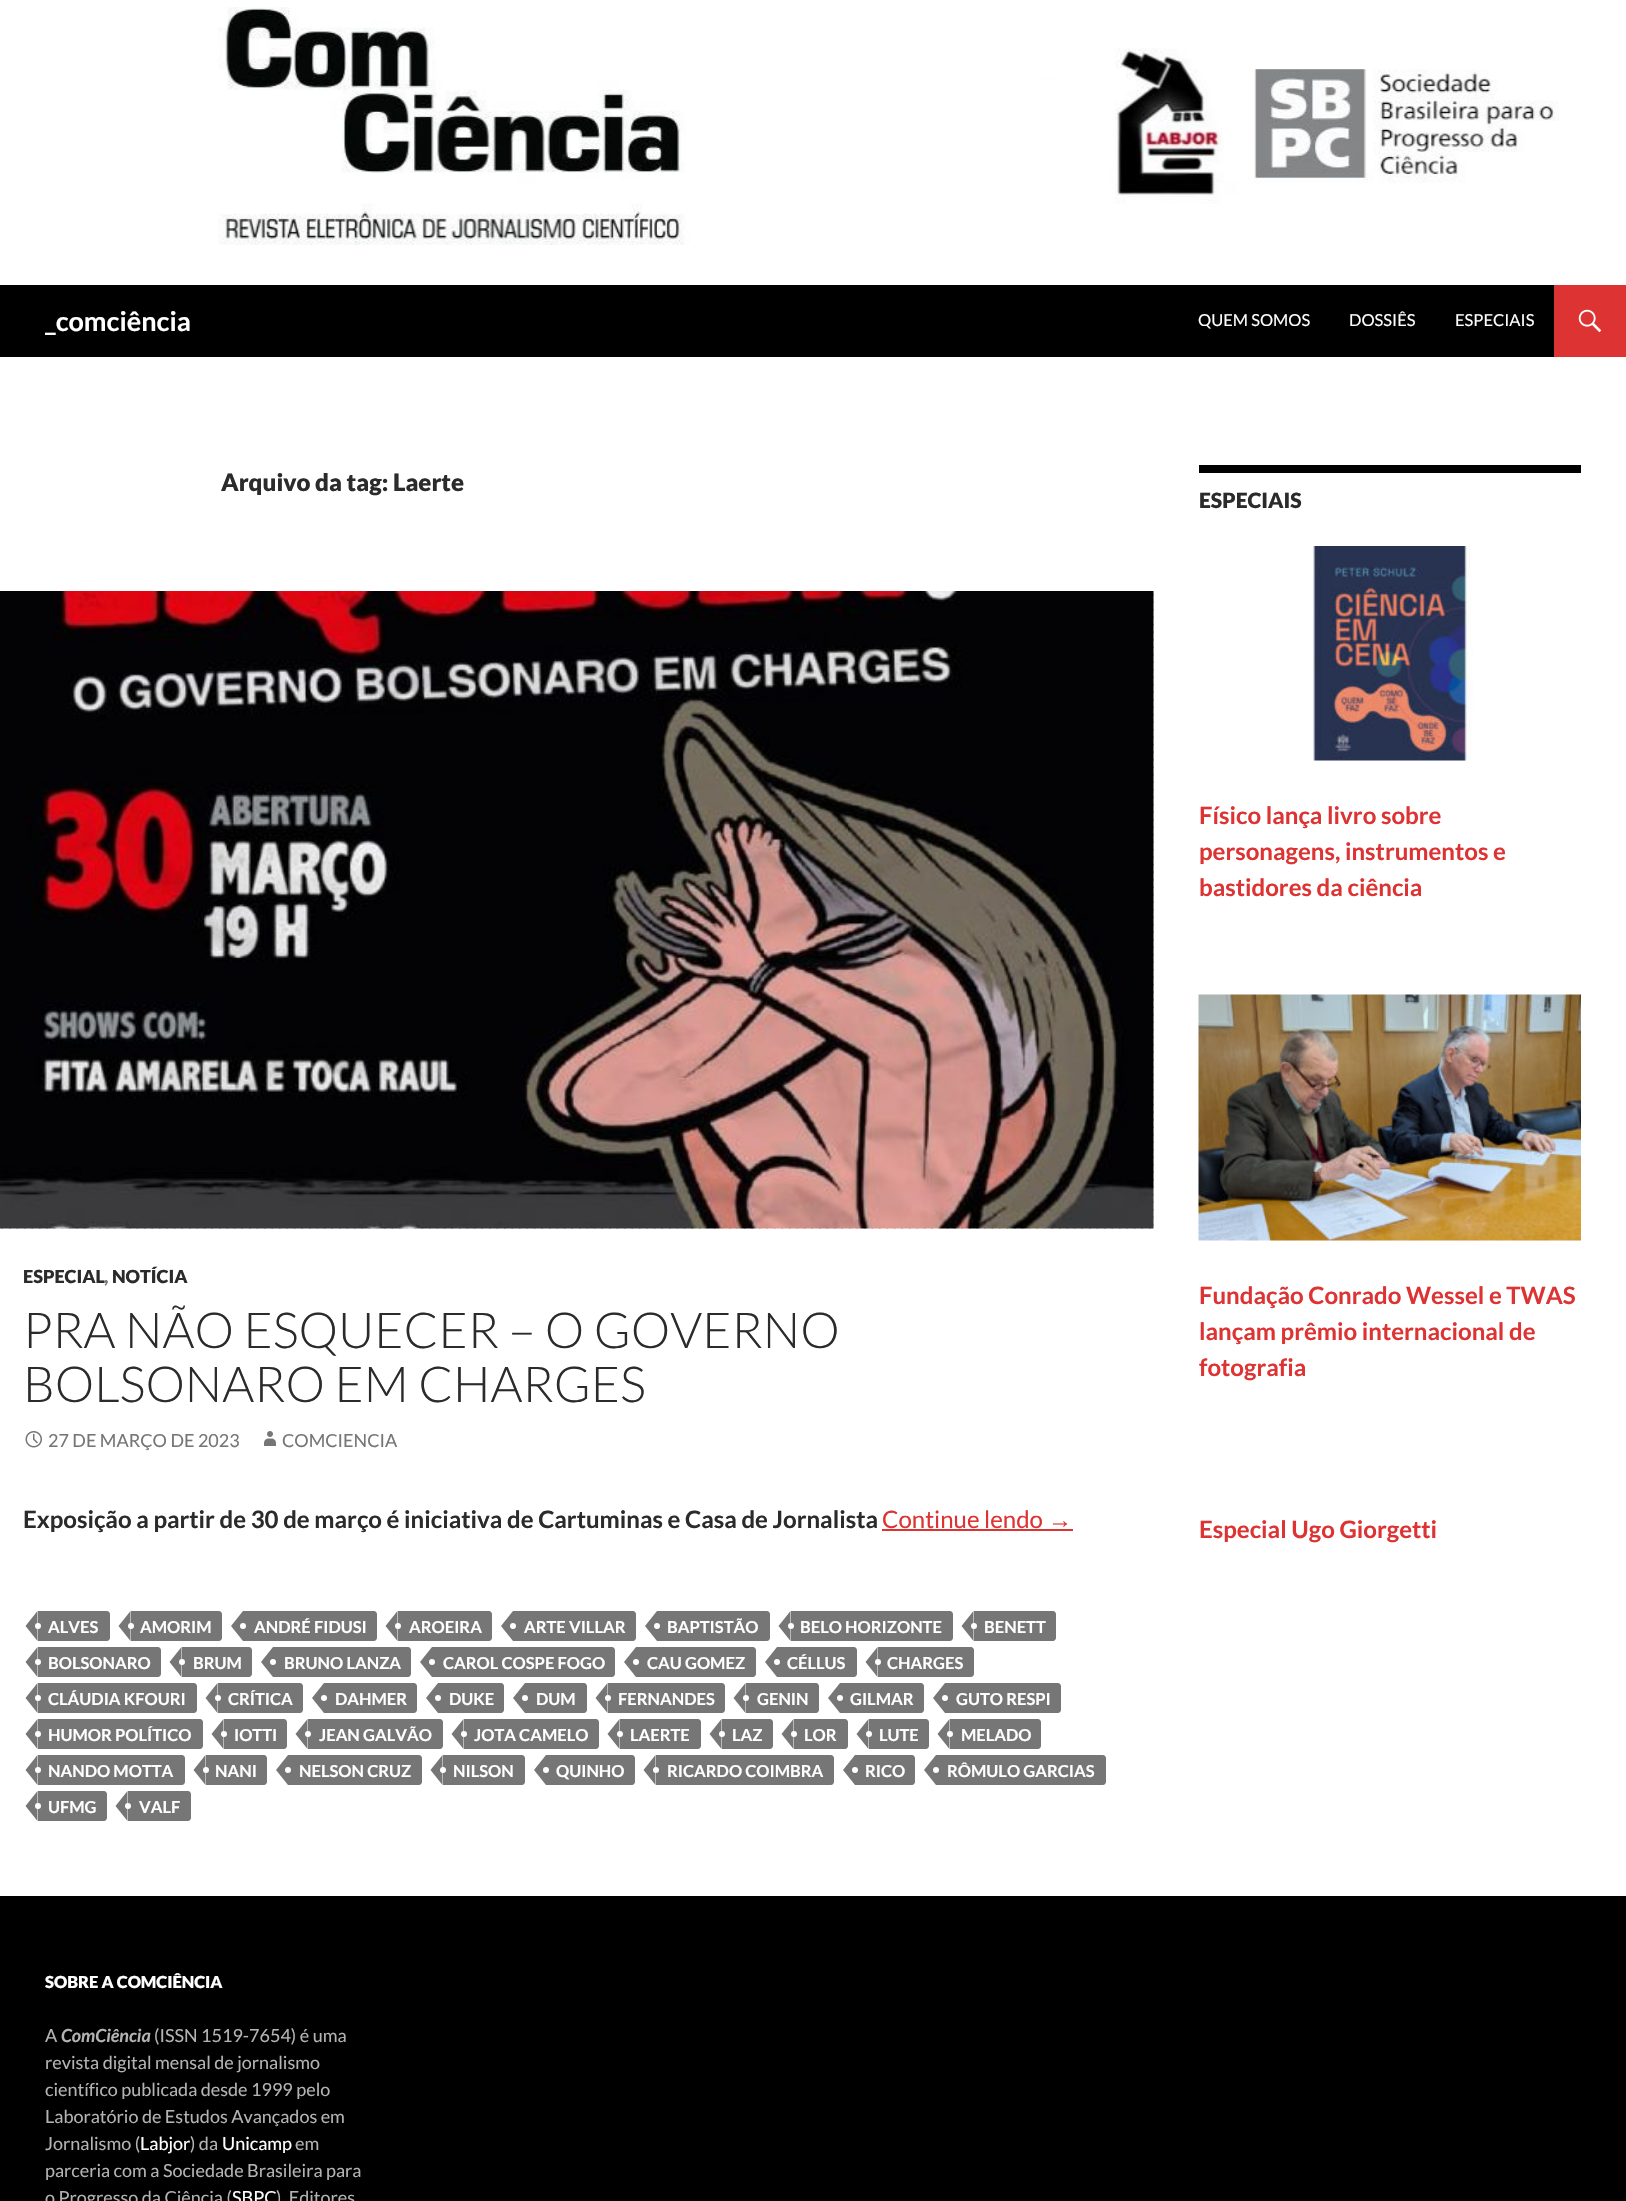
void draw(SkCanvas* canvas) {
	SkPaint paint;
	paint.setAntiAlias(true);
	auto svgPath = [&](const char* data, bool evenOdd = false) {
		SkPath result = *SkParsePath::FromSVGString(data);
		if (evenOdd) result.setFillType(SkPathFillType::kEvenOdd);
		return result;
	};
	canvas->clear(0xffffffff);
	canvas->drawImageRect(SkImages::DeferredFromEncodedData(SkData::MakeFromFileName("img1.png")), SkRect::MakeXYWH(218, 7, 1341, 238), SkSamplingOptions());
	paint.setColor(0xff000000);
	canvas->drawRect(SkRect::MakeXYWH(0, 285, 1554, 72), paint);
	SkFont f1(fontMgr->matchFamilyStyle("Lato", SkFontStyle::Bold()), 27);
	f1.setSubpixel(true);
	paint.setColor(0xffffffff);
	canvas->drawString("_comciência", 45, 331, f1, paint);
	SkFont f2(fontMgr->matchFamilyStyle("Lato", SkFontStyle::Normal()), 16.5);
	f2.setSubpixel(true);
	canvas->drawString("QUEM SOMOS", 1198, 326, f2, paint);
	canvas->drawString("DOSSIÊS", 1349, 326, f2, paint);
	canvas->drawString("ESPECIAIS", 1455, 326, f2, paint);
	paint.setColor(0xffdd3333);
	canvas->drawRect(SkRect::MakeXYWH(1554, 285, 72, 72), paint);
	canvas->drawImageRect(SkImages::DeferredFromEncodedData(SkData::MakeFromFileName("img2.png")), SkRect::MakeXYWH(1578, 309, 24, 24), SkSamplingOptions());
	SkFont f3(fontMgr->matchFamilyStyle("Lato", SkFontStyle(900, SkFontStyle::kNormal_Width, SkFontStyle::kUpright_Slant)), 24);
	f3.setSubpixel(true);
	paint.setColor(0xff2b2b2b);
	canvas->drawString("Arquivo da tag: Laerte", 221, 491, f3, paint);
	paint.setColor(0xffb2b2b2);
	canvas->drawRect(SkRect::MakeXYWH(1, 593, 1153, 636), paint);
	canvas->drawImageRect(SkImages::DeferredFromEncodedData(SkData::MakeFromFileName("img3.png")), SkRect::MakeXYWH(0, 591, 1154, 638), SkSamplingOptions());
	canvas->drawImageRect(SkImages::DeferredFromEncodedData(SkData::MakeFromFileName("img4.png")), SkRect::MakeXYWH(0, 591, 1154, 638), SkSamplingOptions());
	SkFont f4(fontMgr->matchFamilyStyle("Lato", SkFontStyle(900, SkFontStyle::kNormal_Width, SkFontStyle::kUpright_Slant)), 18);
	f4.setSubpixel(true);
	paint.setColor(0xff2b2b2b);
	canvas->drawString("ESPECIAL", 23, 1283, f4, paint);
	paint.setColor(0xff767676);
	canvas->drawString(",", 104, 1283, f4, paint);
	paint.setColor(0xff2b2b2b);
	canvas->drawString("NOTÍCIA", 112, 1283, f4, paint);
	SkFont f5(fontMgr->matchFamilyStyle("Lato", SkFontStyle(300, SkFontStyle::kNormal_Width, SkFontStyle::kUpright_Slant)), 49.5);
	f5.setSubpixel(true);
	canvas->drawString("PRA NÃO ESQUECER – O GOVERNO", 23, 1348, f5, paint);
	canvas->drawString("BOLSONARO EM CHARGES", 23, 1402, f5, paint);
	canvas->drawImageRect(SkImages::DeferredFromEncodedData(SkData::MakeFromFileName("img5.png")), SkRect::MakeXYWH(25, 1431, 17, 17), SkSamplingOptions());
	SkFont f6(fontMgr->matchFamilyStyle("Lato", SkFontStyle::Normal()), 18);
	f6.setSubpixel(true);
	paint.setColor(0xff767676);
	canvas->drawString("27 DE MARÇO DE 2023", 48, 1447, f6, paint);
	canvas->drawImageRect(SkImages::DeferredFromEncodedData(SkData::MakeFromFileName("img6.png")), SkRect::MakeXYWH(264, 1431, 12, 15), SkSamplingOptions());
	canvas->drawString("COMCIENCIA", 282, 1447, f6, paint);
	SkFont f7(fontMgr->matchFamilyStyle("Lato", SkFontStyle::Bold()), 24);
	f7.setSubpixel(true);
	paint.setColor(0xff2b2b2b);
	canvas->drawString("Exposição a partir de 30 de março é iniciativa de Cartuminas e Casa de Jornalista", 23, 1528, f7, paint);
	SkFont f8(fontMgr->matchFamilyStyle("Lato", SkFontStyle::Normal()), 24);
	f8.setSubpixel(true);
	paint.setColor(0xffdd3333);
	canvas->drawString("Continue lendo", 882, 1528, f8, paint);
	SkFont f9(fontMgr->matchFamilyStyle("Liberation Sans", SkFontStyle::Normal()), 24);
	f9.setSubpixel(true);
	canvas->drawString("→", 1048, 1528, f9, paint);
	canvas->drawRect(SkRect::MakeXYWH(882, 1529, 191, 2), paint);
	paint.setColor(0xff767676);
	canvas->drawPath(svgPath("M38 1611H107C108.5 1611 110 1612.5 110 1614V1638C110 1639.5 108.5 1641 107 1641H38Z"), paint);
	canvas->drawPath(svgPath("M37.5 1611V1641L25.5 1626Z"), paint);
	SkFont f10(fontMgr->matchFamilyStyle("Lato", SkFontStyle::Bold()), 16.5);
	f10.setSubpixel(true);
	paint.setColor(0xffffffff);
	canvas->drawString("ALVES", 48, 1633, f10, paint);
	canvas->drawCircle(38, 1626, 3, paint);
	paint.setColor(0xff767676);
	canvas->drawPath(svgPath("M131 1611H219C220.5 1611 222 1612.5 222 1614V1638C222 1639.5 220.5 1641 219 1641H131Z"), paint);
	canvas->drawPath(svgPath("M130.5 1611V1641L118.5 1626Z"), paint);
	paint.setColor(0xffffffff);
	canvas->drawString("AMORIM", 140, 1633, f10, paint);
	canvas->drawCircle(131, 1626, 3, paint);
	paint.setColor(0xff767676);
	canvas->drawPath(svgPath("M243 1611H374C375.5 1611 377 1612.5 377 1614V1638C377 1639.5 375.5 1641 374 1641H243Z"), paint);
	canvas->drawPath(svgPath("M243 1611V1641L231 1626Z"), paint);
	paint.setColor(0xffffffff);
	canvas->drawString("ANDRÉ FIDUSI", 254, 1633, f10, paint);
	canvas->drawCircle(243, 1626, 3, paint);
	paint.setColor(0xff767676);
	canvas->drawPath(svgPath("M398 1611H489C490.5 1611 492 1612.5 492 1614V1638C492 1639.5 490.5 1641 489 1641H398Z"), paint);
	canvas->drawPath(svgPath("M397.5 1611V1641L385.5 1626Z"), paint);
	paint.setColor(0xffffffff);
	canvas->drawString("AROEIRA", 409, 1633, f10, paint);
	canvas->drawCircle(398, 1626, 3, paint);
	paint.setColor(0xff767676);
	canvas->drawPath(svgPath("M513 1611H633C634.5 1611 636 1612.5 636 1614V1638C636 1639.5 634.5 1641 633 1641H513Z"), paint);
	canvas->drawPath(svgPath("M513 1611V1641L501 1626Z"), paint);
	paint.setColor(0xffffffff);
	canvas->drawString("ARTE VILLAR", 524, 1633, f10, paint);
	canvas->drawCircle(513, 1626, 3, paint);
	paint.setColor(0xff767676);
	canvas->drawPath(svgPath("M657 1611H767C768.5 1611 770 1612.5 770 1614V1638C770 1639.5 768.5 1641 767 1641H657Z"), paint);
	canvas->drawPath(svgPath("M657 1611V1641L645 1626Z"), paint);
	paint.setColor(0xffffffff);
	canvas->drawString("BAPTISTÃO", 667, 1633, f10, paint);
	canvas->drawCircle(657, 1626, 3, paint);
	paint.setColor(0xff767676);
	canvas->drawPath(svgPath("M791 1611H950C951.5 1611 953 1612.5 953 1614V1638C953 1639.5 951.5 1641 950 1641H791Z"), paint);
	canvas->drawPath(svgPath("M790.5 1611V1641L778.5 1626Z"), paint);
	paint.setColor(0xffffffff);
	canvas->drawString("BELO HORIZONTE", 800, 1633, f10, paint);
	canvas->drawCircle(791, 1626, 3, paint);
	paint.setColor(0xff767676);
	canvas->drawPath(svgPath("M974 1611H1053C1054.5 1611 1056 1612.5 1056 1614V1638C1056 1639.5 1054.5 1641 1053 1641H974Z"), paint);
	canvas->drawPath(svgPath("M973.5 1611V1641L961.5 1626Z"), paint);
	paint.setColor(0xffffffff);
	canvas->drawString("BENETT", 984, 1633, f10, paint);
	canvas->drawCircle(974, 1626, 3, paint);
	paint.setColor(0xff767676);
	canvas->drawPath(svgPath("M38 1647H158C159.5 1647 161 1648.5 161 1650V1674C161 1675.5 159.5 1677 158 1677H38Z"), paint);
	canvas->drawPath(svgPath("M37.5 1647V1677L25.5 1662Z"), paint);
	paint.setColor(0xffffffff);
	canvas->drawString("BOLSONARO", 48, 1669, f10, paint);
	canvas->drawCircle(38, 1662, 3, paint);
	paint.setColor(0xff767676);
	canvas->drawPath(svgPath("M182 1647H249C250.5 1647 252 1648.5 252 1650V1674C252 1675.5 250.5 1677 249 1677H182Z"), paint);
	canvas->drawPath(svgPath("M181.5 1647V1677L169.5 1662Z"), paint);
	paint.setColor(0xffffffff);
	canvas->drawString("BRUM", 193, 1669, f10, paint);
	canvas->drawCircle(182, 1662, 3, paint);
	paint.setColor(0xff767676);
	canvas->drawPath(svgPath("M273 1647H408C409.5 1647 411 1648.5 411 1650V1674C411 1675.5 409.5 1677 408 1677H273Z"), paint);
	canvas->drawPath(svgPath("M273 1647V1677L261 1662Z"), paint);
	paint.setColor(0xffffffff);
	canvas->drawString("BRUNO LANZA", 284, 1669, f10, paint);
	canvas->drawCircle(273, 1662, 3, paint);
	paint.setColor(0xff767676);
	canvas->drawPath(svgPath("M432 1647H612C613.5 1647 615 1648.5 615 1650V1674C615 1675.5 613.5 1677 612 1677H432Z"), paint);
	canvas->drawPath(svgPath("M432 1647V1677L420 1662Z"), paint);
	paint.setColor(0xffffffff);
	canvas->drawString("CAROL COSPE FOGO", 443, 1669, f10, paint);
	canvas->drawCircle(432, 1662, 3, paint);
	paint.setColor(0xff767676);
	canvas->drawPath(svgPath("M636 1647H753C754.5 1647 756 1648.5 756 1650V1674C756 1675.5 754.5 1677 753 1677H636Z"), paint);
	canvas->drawPath(svgPath("M636 1647V1677L624 1662Z"), paint);
	paint.setColor(0xffffffff);
	canvas->drawString("CAU GOMEZ", 647, 1669, f10, paint);
	canvas->drawCircle(636, 1662, 3, paint);
	paint.setColor(0xff767676);
	canvas->drawPath(svgPath("M777 1647H854C855.5 1647 857 1648.5 857 1650V1674C857 1675.5 855.5 1677 854 1677H777Z"), paint);
	canvas->drawPath(svgPath("M777 1647V1677L765 1662Z"), paint);
	paint.setColor(0xffffffff);
	canvas->drawString("CÉLLUS", 787, 1669, f10, paint);
	canvas->drawCircle(777, 1662, 3, paint);
	paint.setColor(0xff767676);
	canvas->drawPath(svgPath("M878 1647H971C972.5 1647 974 1648.5 974 1650V1674C974 1675.5 972.5 1677 971 1677H878Z"), paint);
	canvas->drawPath(svgPath("M877.5 1647V1677L865.5 1662Z"), paint);
	paint.setColor(0xffffffff);
	canvas->drawString("CHARGES", 887, 1669, f10, paint);
	canvas->drawCircle(878, 1662, 3, paint);
	paint.setColor(0xff767676);
	canvas->drawPath(svgPath("M38 1683H194C195.5 1683 197 1684.5 197 1686V1710C197 1711.5 195.5 1713 194 1713H38Z"), paint);
	canvas->drawPath(svgPath("M37.5 1683V1713L25.5 1698Z"), paint);
	paint.setColor(0xffffffff);
	canvas->drawString("CLÁUDIA KFOURI", 48, 1705, f10, paint);
	canvas->drawCircle(38, 1698, 3, paint);
	paint.setColor(0xff767676);
	canvas->drawPath(svgPath("M218 1683H300C301.5 1683 303 1684.5 303 1686V1710C303 1711.5 301.5 1713 300 1713H218Z"), paint);
	canvas->drawPath(svgPath("M217.5 1683V1713L205.5 1698Z"), paint);
	paint.setColor(0xffffffff);
	canvas->drawString("CRÍTICA", 228, 1705, f10, paint);
	canvas->drawCircle(218, 1698, 3, paint);
	paint.setColor(0xff767676);
	canvas->drawPath(svgPath("M324 1683H414C415.5 1683 417 1684.5 417 1686V1710C417 1711.5 415.5 1713 414 1713H324Z"), paint);
	canvas->drawPath(svgPath("M324 1683V1713L312 1698Z"), paint);
	paint.setColor(0xffffffff);
	canvas->drawString("DAHMER", 335, 1705, f10, paint);
	canvas->drawCircle(324, 1698, 3, paint);
	paint.setColor(0xff767676);
	canvas->drawPath(svgPath("M438 1683H501C502.5 1683 504 1684.5 504 1686V1710C504 1711.5 502.5 1713 501 1713H438Z"), paint);
	canvas->drawPath(svgPath("M438 1683V1713L426 1698Z"), paint);
	paint.setColor(0xffffffff);
	canvas->drawString("DUKE", 449, 1705, f10, paint);
	canvas->drawCircle(438, 1698, 3, paint);
	paint.setColor(0xff767676);
	canvas->drawPath(svgPath("M525 1683H584C585.5 1683 587 1684.5 587 1686V1710C587 1711.5 585.5 1713 584 1713H525Z"), paint);
	canvas->drawPath(svgPath("M525 1683V1713L513 1698Z"), paint);
	paint.setColor(0xffffffff);
	canvas->drawString("DUM", 536, 1705, f10, paint);
	canvas->drawCircle(525, 1698, 3, paint);
	paint.setColor(0xff767676);
	canvas->drawPath(svgPath("M608 1683H722C723.5 1683 725 1684.5 725 1686V1710C725 1711.5 723.5 1713 722 1713H608Z"), paint);
	canvas->drawPath(svgPath("M607.5 1683V1713L595.5 1698Z"), paint);
	paint.setColor(0xffffffff);
	canvas->drawString("FERNANDES", 618, 1705, f10, paint);
	canvas->drawCircle(608, 1698, 3, paint);
	paint.setColor(0xff767676);
	canvas->drawPath(svgPath("M746 1683H816C817.5 1683 819 1684.5 819 1686V1710C819 1711.5 817.5 1713 816 1713H746Z"), paint);
	canvas->drawPath(svgPath("M745.5 1683V1713L733.5 1698Z"), paint);
	paint.setColor(0xffffffff);
	canvas->drawString("GENIN", 757, 1705, f10, paint);
	canvas->drawCircle(746, 1698, 3, paint);
	paint.setColor(0xff767676);
	canvas->drawPath(svgPath("M840 1683H921C922.5 1683 924 1684.5 924 1686V1710C924 1711.5 922.5 1713 921 1713H840Z"), paint);
	canvas->drawPath(svgPath("M840 1683V1713L828 1698Z"), paint);
	paint.setColor(0xffffffff);
	canvas->drawString("GILMAR", 850, 1705, f10, paint);
	canvas->drawCircle(840, 1698, 3, paint);
	paint.setColor(0xff767676);
	canvas->drawPath(svgPath("M945 1683H1058C1059.5 1683 1061 1684.5 1061 1686V1710C1061 1711.5 1059.5 1713 1058 1713H945Z"), paint);
	canvas->drawPath(svgPath("M945 1683V1713L933 1698Z"), paint);
	paint.setColor(0xffffffff);
	canvas->drawString("GUTO RESPI", 956, 1705, f10, paint);
	canvas->drawCircle(945, 1698, 3, paint);
	paint.setColor(0xff767676);
	canvas->drawPath(svgPath("M38 1719H200C201.5 1719 203 1720.5 203 1722V1746C203 1747.5 201.5 1749 200 1749H38Z"), paint);
	canvas->drawPath(svgPath("M37.5 1719V1749L25.5 1734Z"), paint);
	paint.setColor(0xffffffff);
	canvas->drawString("HUMOR POLÍTICO", 48, 1741, f10, paint);
	canvas->drawCircle(38, 1734, 3, paint);
	paint.setColor(0xff767676);
	canvas->drawPath(svgPath("M224 1719H284C285.5 1719 287 1720.5 287 1722V1746C287 1747.5 285.5 1749 284 1749H224Z"), paint);
	canvas->drawPath(svgPath("M223.5 1719V1749L211.5 1734Z"), paint);
	paint.setColor(0xffffffff);
	canvas->drawString("IOTTI", 234, 1741, f10, paint);
	canvas->drawCircle(224, 1734, 3, paint);
	paint.setColor(0xff767676);
	canvas->drawPath(svgPath("M308 1719H440C441.5 1719 443 1720.5 443 1722V1746C443 1747.5 441.5 1749 440 1749H308Z"), paint);
	canvas->drawPath(svgPath("M307.5 1719V1749L295.5 1734Z"), paint);
	paint.setColor(0xffffffff);
	canvas->drawString("JEAN GALVÃO", 319, 1741, f10, paint);
	canvas->drawCircle(308, 1734, 3, paint);
	paint.setColor(0xff767676);
	canvas->drawPath(svgPath("M464 1719H596C597.5 1719 599 1720.5 599 1722V1746C599 1747.5 597.5 1749 596 1749H464Z"), paint);
	canvas->drawPath(svgPath("M463.5 1719V1749L451.5 1734Z"), paint);
	paint.setColor(0xffffffff);
	canvas->drawString("JOTA CAMELO", 474, 1741, f10, paint);
	canvas->drawCircle(464, 1734, 3, paint);
	paint.setColor(0xff767676);
	canvas->drawPath(svgPath("M620 1719H698C699.5 1719 701 1720.5 701 1722V1746C701 1747.5 699.5 1749 698 1749H620Z"), paint);
	canvas->drawPath(svgPath("M619.5 1719V1749L607.5 1734Z"), paint);
	paint.setColor(0xffffffff);
	canvas->drawString("LAERTE", 630, 1741, f10, paint);
	canvas->drawCircle(620, 1734, 3, paint);
	paint.setColor(0xff767676);
	canvas->drawPath(svgPath("M722 1719H770C771.5 1719 773 1720.5 773 1722V1746C773 1747.5 771.5 1749 770 1749H722Z"), paint);
	canvas->drawPath(svgPath("M721.5 1719V1749L709.5 1734Z"), paint);
	paint.setColor(0xffffffff);
	canvas->drawString("LAZ", 732, 1741, f10, paint);
	canvas->drawCircle(722, 1734, 3, paint);
	paint.setColor(0xff767676);
	canvas->drawPath(svgPath("M794 1719H845C846.5 1719 848 1720.5 848 1722V1746C848 1747.5 846.5 1749 845 1749H794Z"), paint);
	canvas->drawPath(svgPath("M793.5 1719V1749L781.5 1734Z"), paint);
	paint.setColor(0xffffffff);
	canvas->drawString("LOR", 804, 1741, f10, paint);
	canvas->drawCircle(794, 1734, 3, paint);
	paint.setColor(0xff767676);
	canvas->drawPath(svgPath("M869 1719H926C927.5 1719 929 1720.5 929 1722V1746C929 1747.5 927.5 1749 926 1749H869Z"), paint);
	canvas->drawPath(svgPath("M868.5 1719V1749L856.5 1734Z"), paint);
	paint.setColor(0xffffffff);
	canvas->drawString("LUTE", 879, 1741, f10, paint);
	canvas->drawCircle(869, 1734, 3, paint);
	paint.setColor(0xff767676);
	canvas->drawPath(svgPath("M950 1719H1038C1039.5 1719 1041 1720.5 1041 1722V1746C1041 1747.5 1039.5 1749 1038 1749H950Z"), paint);
	canvas->drawPath(svgPath("M949.5 1719V1749L937.5 1734Z"), paint);
	paint.setColor(0xffffffff);
	canvas->drawString("MELADO", 961, 1741, f10, paint);
	canvas->drawCircle(950, 1734, 3, paint);
	paint.setColor(0xff767676);
	canvas->drawPath(svgPath("M38 1755H182C183.5 1755 185 1756.5 185 1758V1782C185 1783.5 183.5 1785 182 1785H38Z"), paint);
	canvas->drawPath(svgPath("M37.5 1755V1785L25.5 1770Z"), paint);
	paint.setColor(0xffffffff);
	canvas->drawString("NANDO MOTTA", 48, 1777, f10, paint);
	canvas->drawCircle(38, 1770, 3, paint);
	paint.setColor(0xff767676);
	canvas->drawPath(svgPath("M206 1755H264C265.5 1755 267 1756.5 267 1758V1782C267 1783.5 265.5 1785 264 1785H206Z"), paint);
	canvas->drawPath(svgPath("M205.5 1755V1785L193.5 1770Z"), paint);
	paint.setColor(0xffffffff);
	canvas->drawString("NANI", 215, 1777, f10, paint);
	canvas->drawCircle(206, 1770, 3, paint);
	paint.setColor(0xff767676);
	canvas->drawPath(svgPath("M288 1755H419C420.5 1755 422 1756.5 422 1758V1782C422 1783.5 420.5 1785 419 1785H288Z"), paint);
	canvas->drawPath(svgPath("M288 1755V1785L276 1770Z"), paint);
	paint.setColor(0xffffffff);
	canvas->drawString("NELSON CRUZ", 299, 1777, f10, paint);
	canvas->drawCircle(288, 1770, 3, paint);
	paint.setColor(0xff767676);
	canvas->drawPath(svgPath("M443 1755H522C523.5 1755 525 1756.5 525 1758V1782C525 1783.5 523.5 1785 522 1785H443Z"), paint);
	canvas->drawPath(svgPath("M442.5 1755V1785L430.5 1770Z"), paint);
	paint.setColor(0xffffffff);
	canvas->drawString("NILSON", 453, 1777, f10, paint);
	canvas->drawCircle(443, 1770, 3, paint);
	paint.setColor(0xff767676);
	canvas->drawPath(svgPath("M546 1755H632C633.5 1755 635 1756.5 635 1758V1782C635 1783.5 633.5 1785 632 1785H546Z"), paint);
	canvas->drawPath(svgPath("M546 1755V1785L534 1770Z"), paint);
	paint.setColor(0xffffffff);
	canvas->drawString("QUINHO", 556, 1777, f10, paint);
	canvas->drawCircle(546, 1770, 3, paint);
	paint.setColor(0xff767676);
	canvas->drawPath(svgPath("M656 1755H831C832.5 1755 834 1756.5 834 1758V1782C834 1783.5 832.5 1785 831 1785H656Z"), paint);
	canvas->drawPath(svgPath("M655.5 1755V1785L643.5 1770Z"), paint);
	paint.setColor(0xffffffff);
	canvas->drawString("RICARDO COIMBRA", 667, 1777, f10, paint);
	canvas->drawCircle(656, 1770, 3, paint);
	paint.setColor(0xff767676);
	canvas->drawPath(svgPath("M855 1755H912C913.5 1755 915 1756.5 915 1758V1782C915 1783.5 913.5 1785 912 1785H855Z"), paint);
	canvas->drawPath(svgPath("M855 1755V1785L843 1770Z"), paint);
	paint.setColor(0xffffffff);
	canvas->drawString("RICO", 865, 1777, f10, paint);
	canvas->drawCircle(855, 1770, 3, paint);
	paint.setColor(0xff767676);
	canvas->drawPath(svgPath("M936 1755H1103C1104.5 1755 1106 1756.5 1106 1758V1782C1106 1783.5 1104.5 1785 1103 1785H936Z"), paint);
	canvas->drawPath(svgPath("M936 1755V1785L924 1770Z"), paint);
	paint.setColor(0xffffffff);
	canvas->drawString("RÔMULO GARCIAS", 947, 1777, f10, paint);
	canvas->drawCircle(936, 1770, 3, paint);
	paint.setColor(0xff767676);
	canvas->drawPath(svgPath("M38 1791H104C105.5 1791 107 1792.5 107 1794V1818C107 1819.5 105.5 1821 104 1821H38Z"), paint);
	canvas->drawPath(svgPath("M37.5 1791V1821L25.5 1806Z"), paint);
	paint.setColor(0xffffffff);
	canvas->drawString("UFMG", 48, 1813, f10, paint);
	canvas->drawCircle(38, 1806, 3, paint);
	paint.setColor(0xff767676);
	canvas->drawPath(svgPath("M128 1791H188C189.5 1791 191 1792.5 191 1794V1818C191 1819.5 189.5 1821 188 1821H128Z"), paint);
	canvas->drawPath(svgPath("M127.5 1791V1821L115.5 1806Z"), paint);
	paint.setColor(0xffffffff);
	canvas->drawString("VALF", 139, 1813, f10, paint);
	canvas->drawCircle(128, 1806, 3, paint);
	paint.setColor(0xff000000);
	canvas->drawRect(SkRect::MakeXYWH(1199, 465, 382, 8), paint);
	SkFont f11(fontMgr->matchFamilyStyle("Lato", SkFontStyle(900, SkFontStyle::kNormal_Width, SkFontStyle::kUpright_Slant)), 21);
	f11.setSubpixel(true);
	paint.setColor(0xff2b2b2b);
	canvas->drawString("ESPECIAIS", 1199, 508, f11, paint);
	canvas->drawImageRect(SkImages::DeferredFromEncodedData(SkData::MakeFromFileName("img7.png")), SkRect::MakeXYWH(1311, 546, 162, 215), SkSamplingOptions());
	paint.setColor(0xffdd3333);
	canvas->drawString("Físico lança livro sobre", 1199, 824, f7, paint);
	canvas->drawString("personagens, instrumentos e", 1199, 860, f7, paint);
	canvas->drawString("bastidores da ciência", 1199, 896, f7, paint);
	canvas->drawImageRect(SkImages::DeferredFromEncodedData(SkData::MakeFromFileName("img8.png")), SkRect::MakeXYWH(1198, 994, 383, 247), SkSamplingOptions());
	canvas->drawString("Fundação Conrado Wessel e TWAS", 1199, 1304, f7, paint);
	canvas->drawString("lançam prêmio internacional de", 1199, 1340, f7, paint);
	canvas->drawString("fotografia", 1199, 1376, f7, paint);
	canvas->drawString("Especial Ugo Giorgetti", 1199, 1538, f7, paint);
	paint.setColor(0xff000000);
	canvas->drawRect(SkRect::MakeXYWH(0, 1896, 1626, 305), paint);
	SkFont f12(fontMgr->matchFamilyStyle("Lato", SkFontStyle(900, SkFontStyle::kNormal_Width, SkFontStyle::kUpright_Slant)), 16.5);
	f12.setSubpixel(true);
	paint.setColor(0xffffffff);
	canvas->drawString("SOBRE A COMCIÊNCIA", 45, 1988, f12, paint);
	paint.setColor(0xffb3b3b3);
	canvas->drawString("A", 45, 2042, f6, paint);
	SkFont f13(fontMgr->matchFamilyStyle("Lato", SkFontStyle::BoldItalic()), 18);
	f13.setSubpixel(true);
	canvas->drawString("ComCiência", 61, 2042, f13, paint);
	canvas->drawString("(ISSN 1519-7654) é uma", 154, 2042, f6, paint);
	canvas->drawString("revista digital mensal de jornalismo", 45, 2069, f6, paint);
	canvas->drawString("científico publicada desde 1999 pelo", 45, 2096, f6, paint);
	canvas->drawString("Laboratório de Estudos Avançados em", 45, 2123, f6, paint);
	canvas->drawString("Jornalismo (", 45, 2150, f6, paint);
	paint.setColor(0xffffffff);
	canvas->drawString("Labjor", 140, 2150, f6, paint);
	paint.setColor(0xffb3b3b3);
	canvas->drawString(") da", 190, 2150, f6, paint);
	paint.setColor(0xffffffff);
	canvas->drawString("Unicamp", 222, 2150, f6, paint);
	paint.setColor(0xffb3b3b3);
	canvas->drawString("em", 295, 2150, f6, paint);
	canvas->drawString("parceria com a Sociedade Brasileira para", 45, 2177, f6, paint);
	canvas->drawString("o Progresso da Ciência (", 45, 2204, f6, paint);
	paint.setColor(0xffffffff);
	canvas->drawString("SBPC", 232, 2204, f6, paint);
	paint.setColor(0xffb3b3b3);
	canvas->drawString("). Editores", 276, 2204, f6, paint);
}
